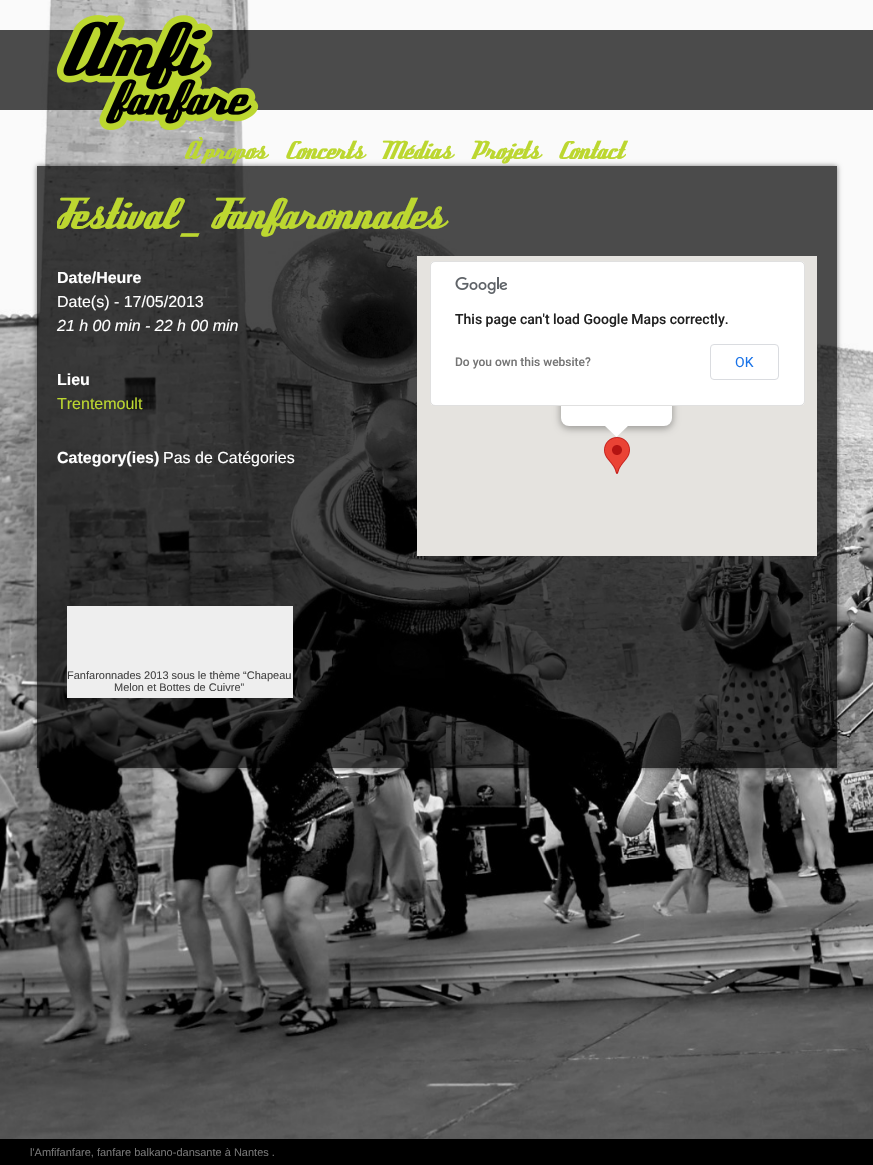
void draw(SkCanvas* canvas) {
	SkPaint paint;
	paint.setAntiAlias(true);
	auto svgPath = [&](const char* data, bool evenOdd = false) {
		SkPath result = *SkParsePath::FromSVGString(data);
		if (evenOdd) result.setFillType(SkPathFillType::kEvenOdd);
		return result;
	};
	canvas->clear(0xffffffff);
	canvas->drawImageRect(SkImages::DeferredFromEncodedData(SkData::MakeFromFileName("img1.png")), SkRect::MakeXYWH(0, 0, 873, 1139), SkSamplingOptions());
	paint.setColor(0xb3000000);
	canvas->drawRect(SkRect::MakeXYWH(0, 30, 873, 80), paint);
	canvas->drawImageRect(SkImages::DeferredFromEncodedData(SkData::MakeFromFileName("img2.png")), SkRect::MakeXYWH(56, 15, 203, 116), SkSamplingOptions());
	canvas->save();
	canvas->clipPath(svgPath("M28 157H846V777H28ZM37 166H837V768H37Z", true), true);
	paint.setColor(0x80000000);
	paint.setMaskFilter(SkMaskFilter::MakeBlur(kNormal_SkBlurStyle, 2.5));
	canvas->drawRect(SkRect::MakeXYWH(37, 166, 800, 602), paint);
	paint.setMaskFilter(nullptr);
	canvas->restore();
	SkFont f1(fontMgr->matchFamilyStyle("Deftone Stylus", SkFontStyle::Normal()), 28);
	f1.setSubpixel(true);
	paint.setColor(0xffbcd730);
	canvas->drawString("À propos", 183, 159, f1, paint);
	canvas->drawString("Concerts", 284, 159, f1, paint);
	canvas->drawString("Médias", 381, 159, f1, paint);
	canvas->drawString("Projets", 470, 159, f1, paint);
	canvas->drawString("Contact", 557, 159, f1, paint);
	paint.setColor(0xb3000000);
	canvas->drawRect(SkRect::MakeXYWH(37, 166, 800, 602), paint);
	canvas->save();
	canvas->clipRect(SkRect::MakeXYWH(57, 176, 760, 572));
	SkFont f2(fontMgr->matchFamilyStyle("Deftone Stylus", SkFontStyle::Normal()), 48);
	f2.setSubpixel(true);
	paint.setColor(0xffbcd730);
	canvas->drawString("Festival _ Fanfaronnades", 57, 229, f2, paint);
	canvas->restore();
	SkFont f3(fontMgr->matchFamilyStyle("Liberation Sans", SkFontStyle::Bold()), 16);
	f3.setSubpixel(true);
	paint.setColor(0xffffffff);
	canvas->drawString("Date/Heure", 57, 283, f3, paint);
	SkFont f4(fontMgr->matchFamilyStyle("Liberation Sans", SkFontStyle::Normal()), 16);
	f4.setSubpixel(true);
	canvas->drawString("Date(s) - 17/05/2013", 57, 307, f4, paint);
	SkFont f5(fontMgr->matchFamilyStyle("Liberation Sans", SkFontStyle::Italic()), 16);
	f5.setSubpixel(true);
	canvas->drawString("21 h 00 min - 22 h 00 min", 57, 331, f5, paint);
	paint.setColor(0xffe5e3df);
	canvas->drawRect(SkRect::MakeXYWH(417, 256, 400, 300), paint);
	canvas->drawImageRect(SkImages::DeferredFromEncodedData(SkData::MakeFromFileName("img3.png")), SkRect::MakeXYWH(604, 437, 26, 37), SkSamplingOptions());
	paint.setColor(0x4d000000);
	paint.setMaskFilter(SkMaskFilter::MakeBlur(kNormal_SkBlurStyle, 3.5));
	canvas->drawRoundRect(SkRect::MakeXYWH(560, 317, 113, 112), 9, 9, paint);
	paint.setMaskFilter(nullptr);
	paint.setColor(0xffffffff);
	canvas->drawRoundRect(SkRect::MakeXYWH(561, 316, 111, 110), 8, 8, paint);
	canvas->drawPath(svgPath("M605 425V426L616.5 437L629 425Z"), paint);
	canvas->drawRoundRect(SkRect::MakeXYWH(430, 261, 375, 145), 5, 5, paint);
	paint.setStroke(true);
	paint.setStrokeWidth(1);
	paint.setColor(0x1f000000);
	canvas->drawRoundRect(SkRect::MakeXYWH(430.5, 261.5, 374, 144), 4.5, 4.5, paint);
	canvas->drawImageRect(SkImages::DeferredFromEncodedData(SkData::MakeFromFileName("img4.png")), SkRect::MakeXYWH(455, 277, 52, 17), SkSamplingOptions());
	SkFont f6(fontMgr->matchFamilyStyle("Roboto", SkFontStyle(500, SkFontStyle::kNormal_Width, SkFontStyle::kUpright_Slant)), 14);
	f6.setSubpixel(true);
	paint.setStroke(false);
	paint.setColor(0xff212121);
	canvas->drawString("This page can't load Google Maps correctly.", 455, 324, f6, paint);
	SkFont f7(fontMgr->matchFamilyStyle("Roboto", SkFontStyle(500, SkFontStyle::kNormal_Width, SkFontStyle::kUpright_Slant)), 12);
	f7.setSubpixel(true);
	paint.setColor(0xff757575);
	canvas->drawString("Do you own this website?", 455, 366, f7, paint);
	paint.setStroke(true);
	paint.setColor(0xffdadce0);
	canvas->drawRoundRect(SkRect::MakeXYWH(710.5, 344.5, 68, 35), 3.5, 3.5, paint);
	SkFont f8(fontMgr->matchFamilyStyle("Roboto", SkFontStyle::Normal()), 14);
	f8.setSubpixel(true);
	paint.setStroke(false);
	paint.setColor(0xff1a73e8);
	canvas->drawString("OK", 735, 367, f8, paint);
	paint.setColor(0xffffffff);
	canvas->drawString("Lieu", 57, 385, f3, paint);
	paint.setColor(0xffbcd730);
	canvas->drawString("Trentemoult", 57, 409, f4, paint);
	paint.setColor(0xffffffff);
	canvas->drawString("Category(ies)", 57, 463, f3, paint);
	canvas->drawString("Pas de Catégories", 163, 463, f4, paint);
	paint.setColor(0xffeeeeee);
	canvas->drawRect(SkRect::MakeXYWH(67, 606, 226, 92), paint);
	SkFont f9(fontMgr->matchFamilyStyle("Liberation Sans", SkFontStyle::Normal()), 11);
	f9.setSubpixel(true);
	paint.setColor(0xff444444);
	canvas->drawString("Fanfaronnades 2013 sous le thème “Chapeau", 67, 679, f9, paint);
	canvas->drawString("Melon et Bottes de Cuivre”", 114, 691, f9, paint);
	paint.setColor(0xff000000);
	canvas->drawRect(SkRect::MakeXYWH(0, 1139, 873, 26), paint);
	paint.setColor(0xff757575);
	canvas->drawString("l'Amfifanfare, fanfare balkano-dansante à Nantes .", 30, 1156, f9, paint);
}
